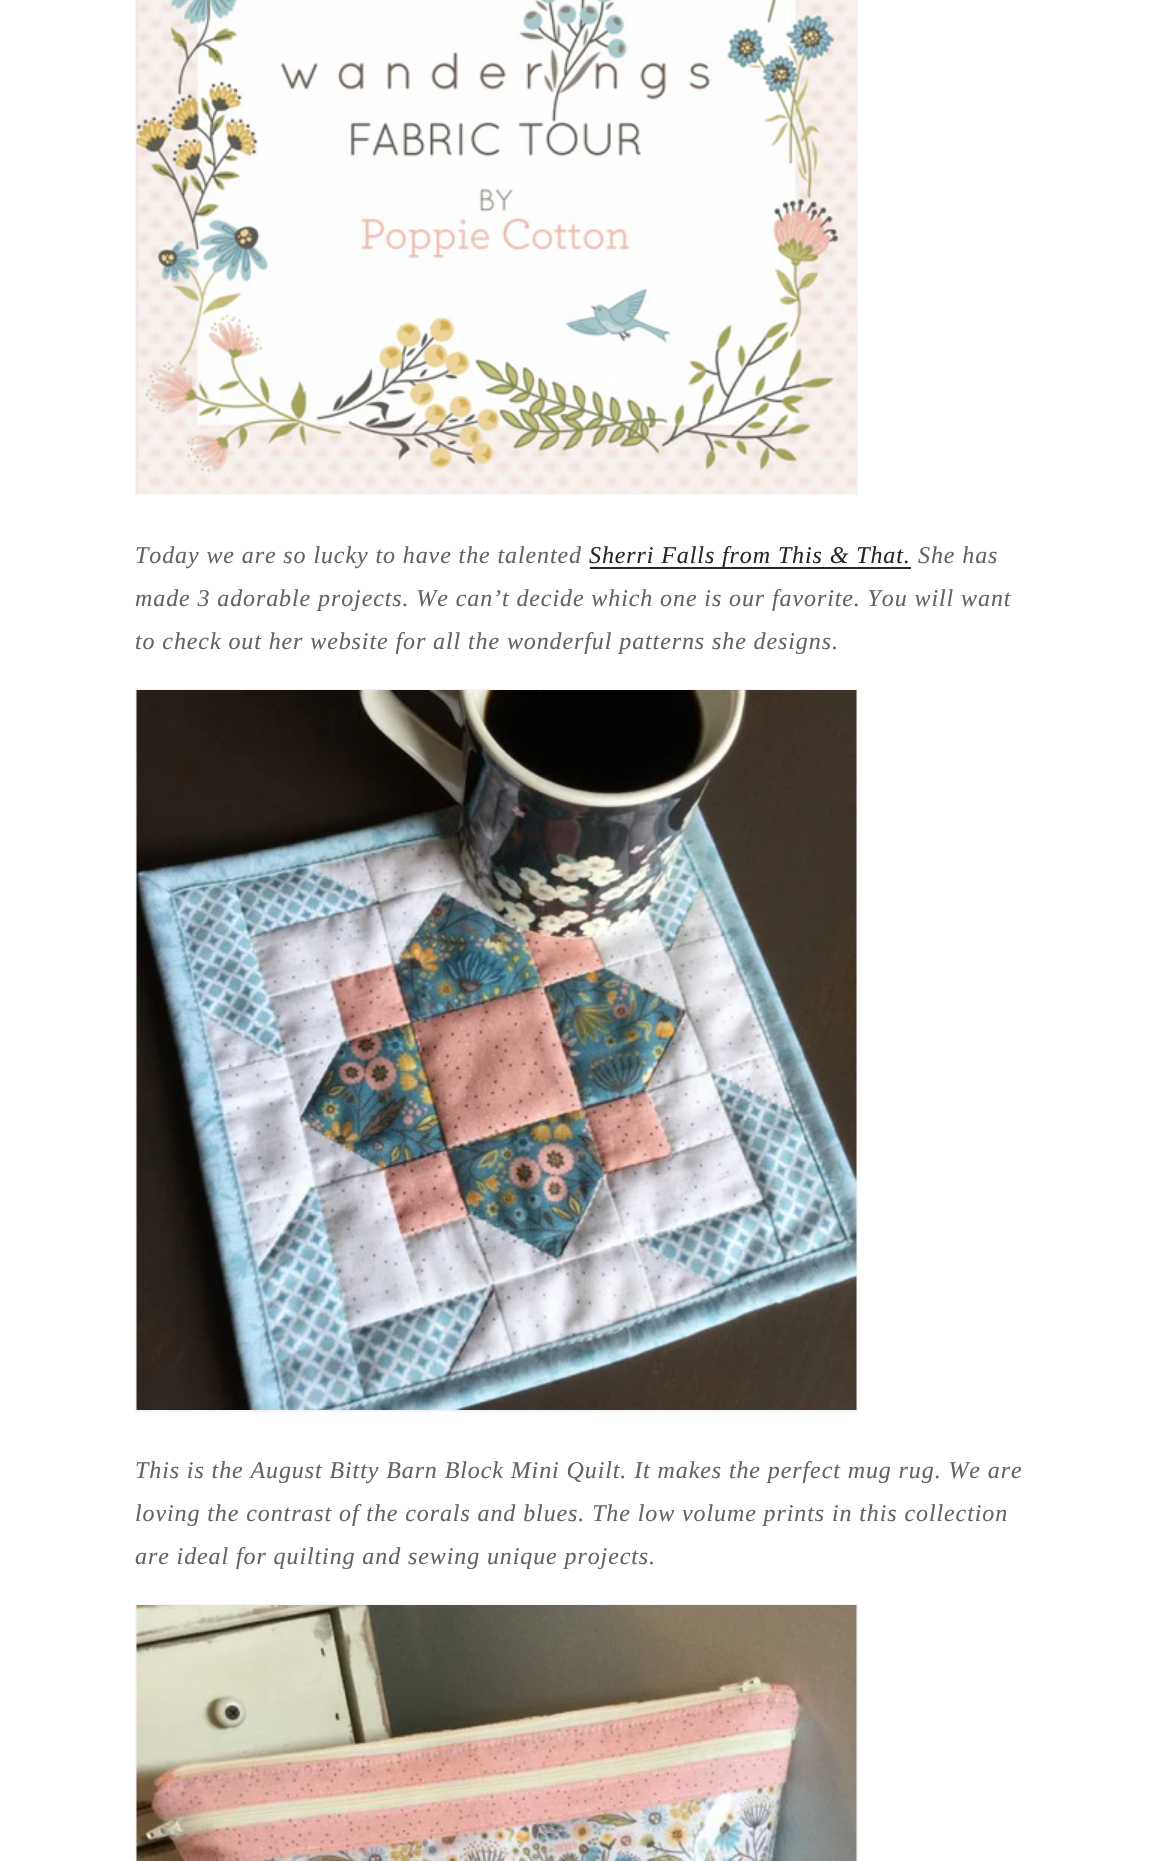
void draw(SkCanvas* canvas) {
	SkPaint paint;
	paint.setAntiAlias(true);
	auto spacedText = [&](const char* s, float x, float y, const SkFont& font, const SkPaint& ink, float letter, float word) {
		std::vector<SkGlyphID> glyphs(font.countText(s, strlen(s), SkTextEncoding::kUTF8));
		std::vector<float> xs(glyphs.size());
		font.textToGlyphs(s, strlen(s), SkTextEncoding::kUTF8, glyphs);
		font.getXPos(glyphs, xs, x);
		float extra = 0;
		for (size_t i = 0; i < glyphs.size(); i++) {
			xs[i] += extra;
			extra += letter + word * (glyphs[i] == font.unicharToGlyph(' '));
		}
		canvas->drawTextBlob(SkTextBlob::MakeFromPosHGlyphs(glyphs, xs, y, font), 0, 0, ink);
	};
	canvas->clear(0xffffffff);
	paint.setStroke(true);
	paint.setStrokeWidth(2);
	paint.setColor(0xfff5f5f5);
	canvas->drawRect(SkRect::MakeXYWH(136, -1, 721, 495), paint);
	canvas->drawImageRect(SkImages::DeferredFromEncodedData(SkData::MakeFromFileName("img1.png")), SkRect::MakeXYWH(136, 0, 721, 494), SkSamplingOptions());
	SkFont f1(fontMgr->matchFamilyStyle("Liberation Serif", SkFontStyle::Italic()), 24);
	f1.setSubpixel(true);
	paint.setStroke(false);
	paint.setColor(0xff656262);
	spacedText("Today we are so lucky to have the talented", 135, 563, f1, paint, 0.9, 0);
	paint.setColor(0xff262626);
	canvas->drawRect(SkRect::MakeXYWH(590, 567, 321, 2), paint);
	spacedText("Sherri Falls from This & That.", 589, 563, f1, paint, 0.9, 0);
	paint.setColor(0xff656262);
	spacedText("She has", 918, 563, f1, paint, 0.9, 0);
	spacedText("made 3 adorable projects. We can’t decide which one is our favorite. You will want", 135, 606, f1, paint, 0.9, 0);
	spacedText("to check out her website for all the wonderful patterns she designs.", 135, 649, f1, paint, 0.9, 0);
	paint.setStroke(true);
	paint.setColor(0xfff5f5f5);
	canvas->drawRect(SkRect::MakeXYWH(136, 690, 721, 721), paint);
	canvas->drawImageRect(SkImages::DeferredFromEncodedData(SkData::MakeFromFileName("img2.png")), SkRect::MakeXYWH(136, 690, 721, 720), SkSamplingOptions());
	paint.setStroke(false);
	paint.setColor(0xff656262);
	spacedText("This is the August Bitty Barn Block Mini Quilt. It makes the perfect mug rug. We are", 135, 1478, f1, paint, 0.9, 0);
	spacedText("loving the contrast of the corals and blues. The low volume prints in this collection", 135, 1521, f1, paint, 0.9, 0);
	spacedText("are ideal for quilting and sewing unique projects.", 135, 1564, f1, paint, 0.9, 0);
	paint.setStroke(true);
	paint.setColor(0xfff5f5f5);
	canvas->drawRect(SkRect::MakeXYWH(136, 1605, 721, 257), paint);
	canvas->drawImageRect(SkImages::DeferredFromEncodedData(SkData::MakeFromFileName("img3.png")), SkRect::MakeXYWH(136, 1605, 721, 256), SkSamplingOptions());
}
